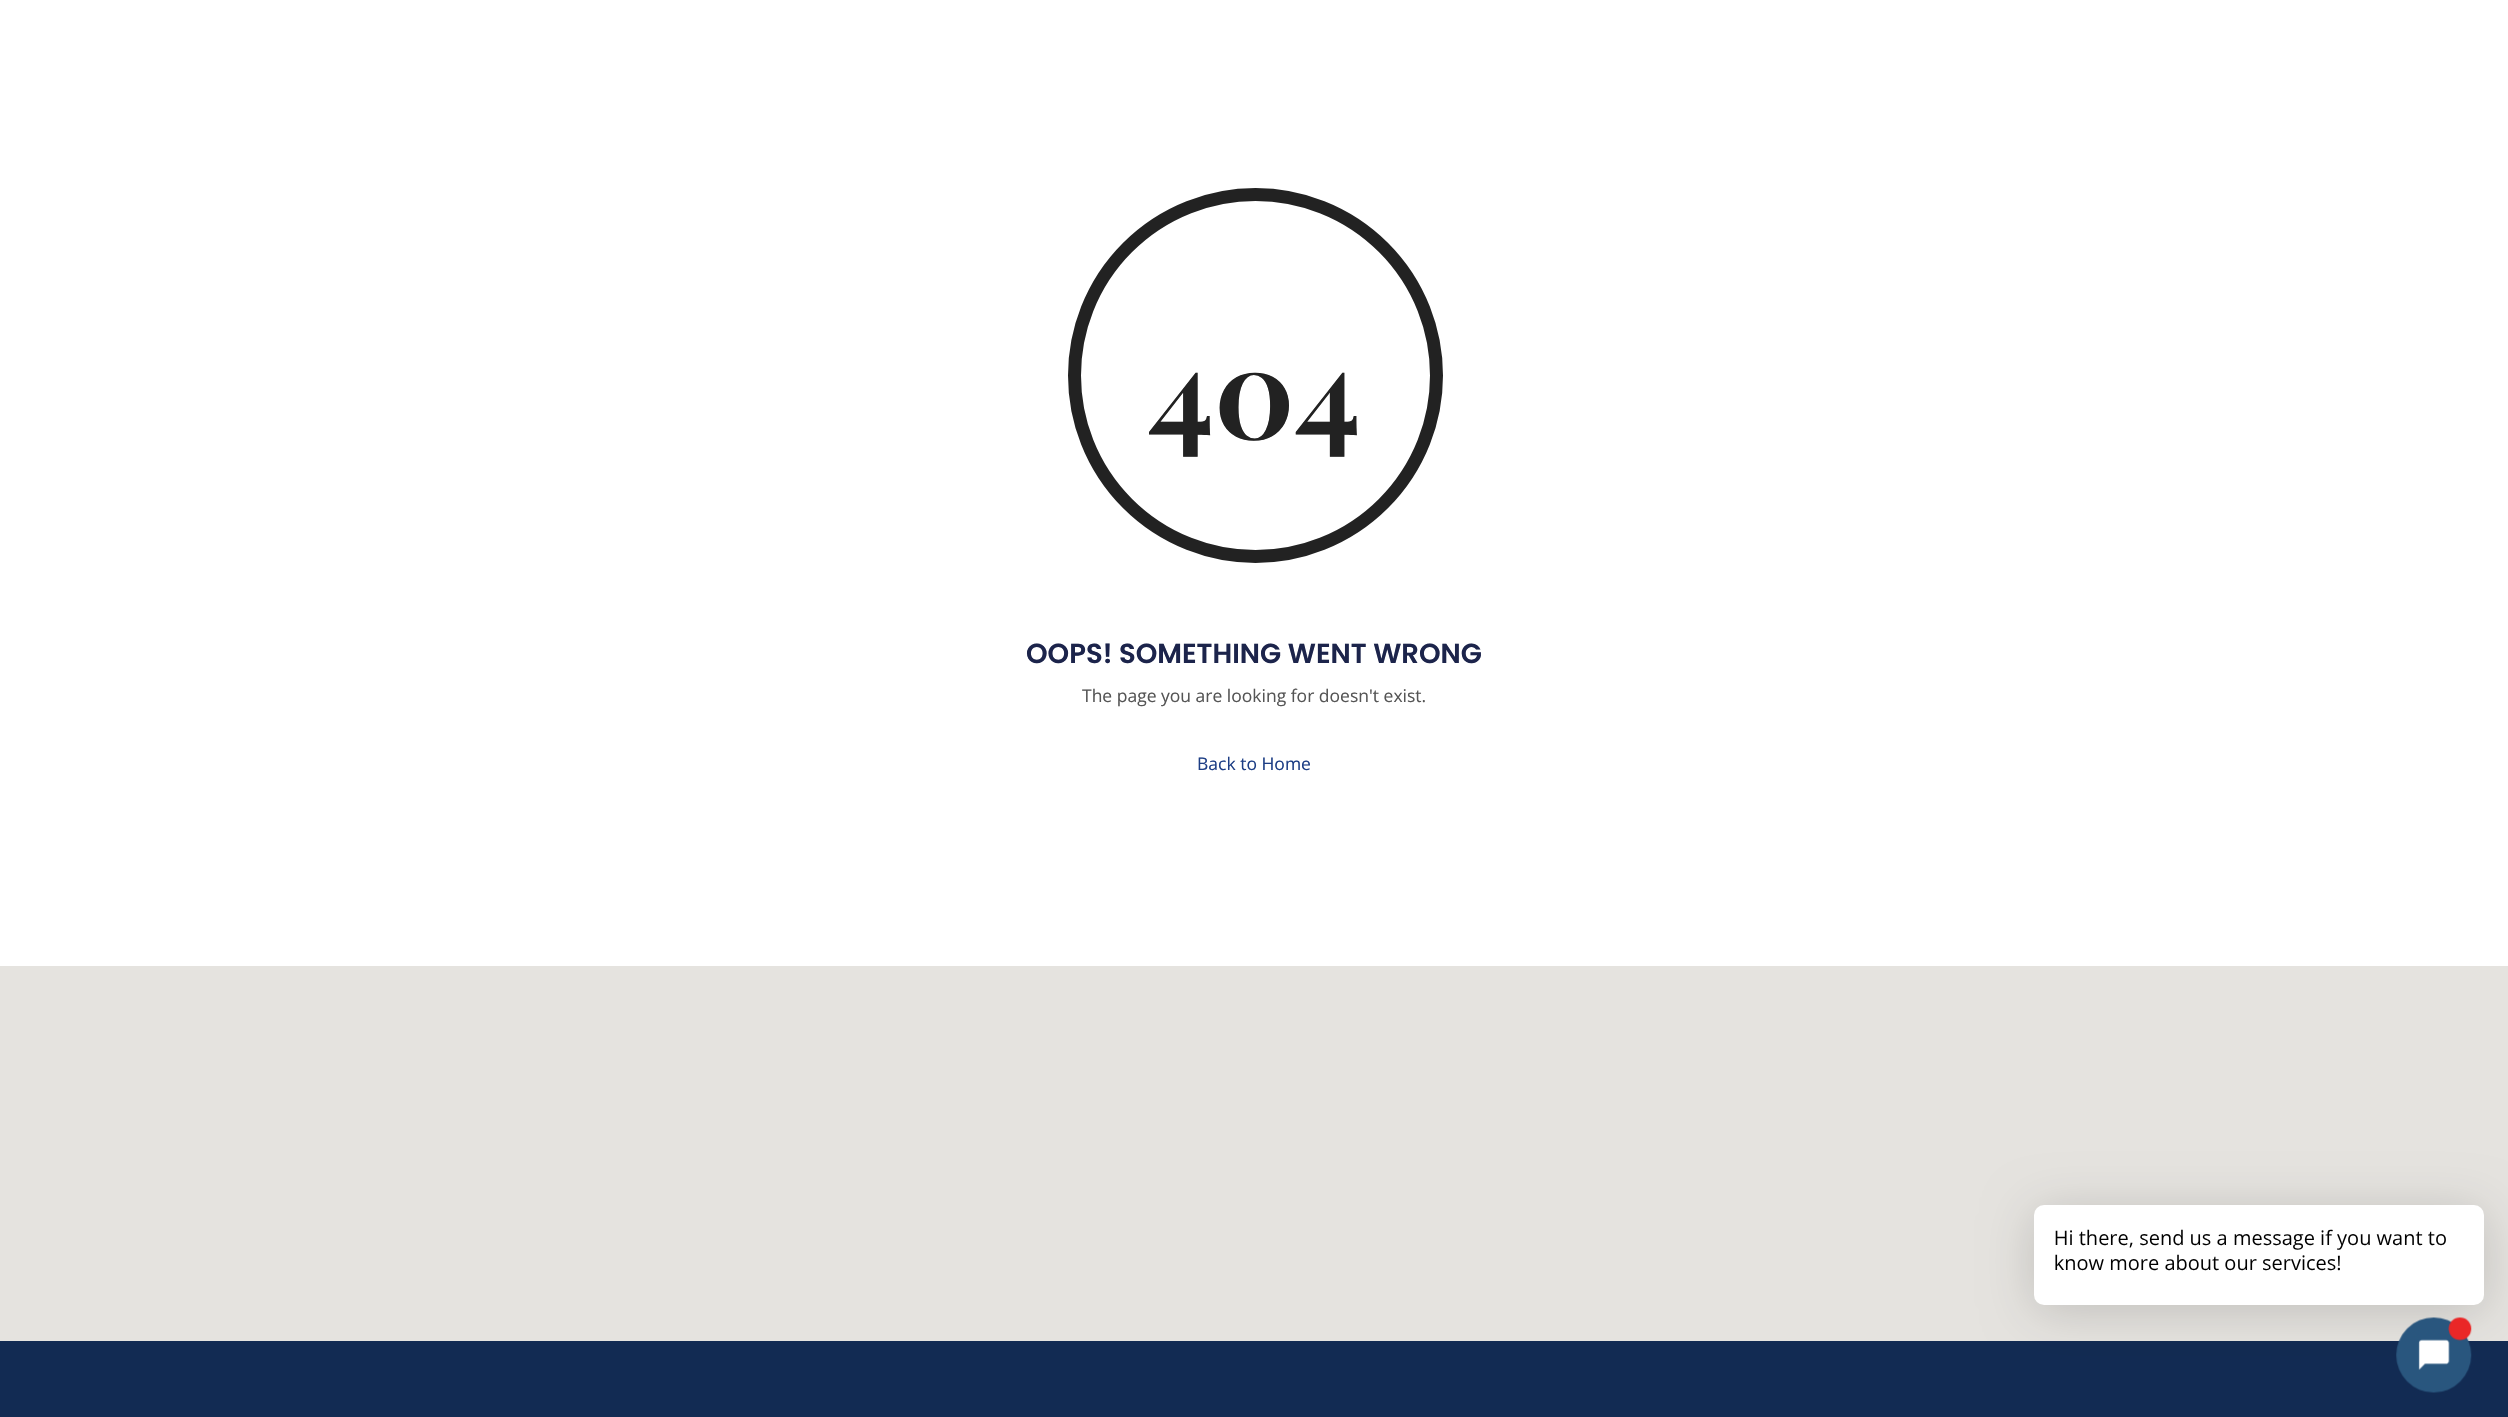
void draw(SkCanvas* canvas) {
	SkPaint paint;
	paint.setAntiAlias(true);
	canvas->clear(0xffffffff);
	paint.setStroke(true);
	paint.setStrokeWidth(13);
	paint.setColor(0xff222222);
	canvas->drawCircle(1255.5, 375.5, 181, paint);
	SkFont f1(fontMgr->matchFamilyStyle("Playfair Display", SkFontStyle::Bold()), 125);
	f1.setSubpixel(true);
	paint.setStroke(false);
	canvas->drawString("404", 1148, 439, f1, paint);
	SkFont f2(fontMgr->matchFamilyStyle("Poppins", SkFontStyle(600, SkFontStyle::kNormal_Width, SkFontStyle::kUpright_Slant)), 27.5);
	f2.setSubpixel(true);
	paint.setColor(0xff1c244b);
	canvas->drawString("OOPS! SOMETHING WENT WRONG", 1026, 663, f2, paint);
	SkFont f3(fontMgr->matchFamilyStyle("Open Sans", SkFontStyle::Normal()), 17.5);
	f3.setSubpixel(true);
	paint.setColor(0xff555555);
	canvas->drawString("The page you are looking for doesn't exist.", 1082, 702, f3, paint);
	paint.setColor(0xff1d3e85);
	canvas->drawString("Back to Home", 1197, 770, f3, paint);
	paint.setColor(0xffe5e3df);
	canvas->drawRect(SkRect::MakeXYWH(0, 966, 2508, 375), paint);
	paint.setColor(0xff122b53);
	canvas->drawRect(SkRect::MakeXYWH(0, 1341, 2508, 76), paint);
	paint.setColor(0x29000000);
	paint.setMaskFilter(SkMaskFilter::MakeBlur(kNormal_SkBlurStyle, 25));
	canvas->drawRoundRect(SkRect::MakeXYWH(2034, 1211, 450, 100), 10, 10, paint);
	paint.setMaskFilter(nullptr);
	paint.setColor(0xffffffff);
	canvas->drawRoundRect(SkRect::MakeXYWH(2034, 1205, 450, 100), 10, 10, paint);
	canvas->drawImageRect(SkImages::DeferredFromEncodedData(SkData::MakeFromFileName("img1.png")), SkRect::MakeXYWH(2055, 1229, 391, 42), SkSamplingOptions());
	canvas->drawImageRect(SkImages::DeferredFromEncodedData(SkData::MakeFromFileName("img2.png")), SkRect::MakeXYWH(2396, 1317, 76, 76), SkSamplingOptions());
}
